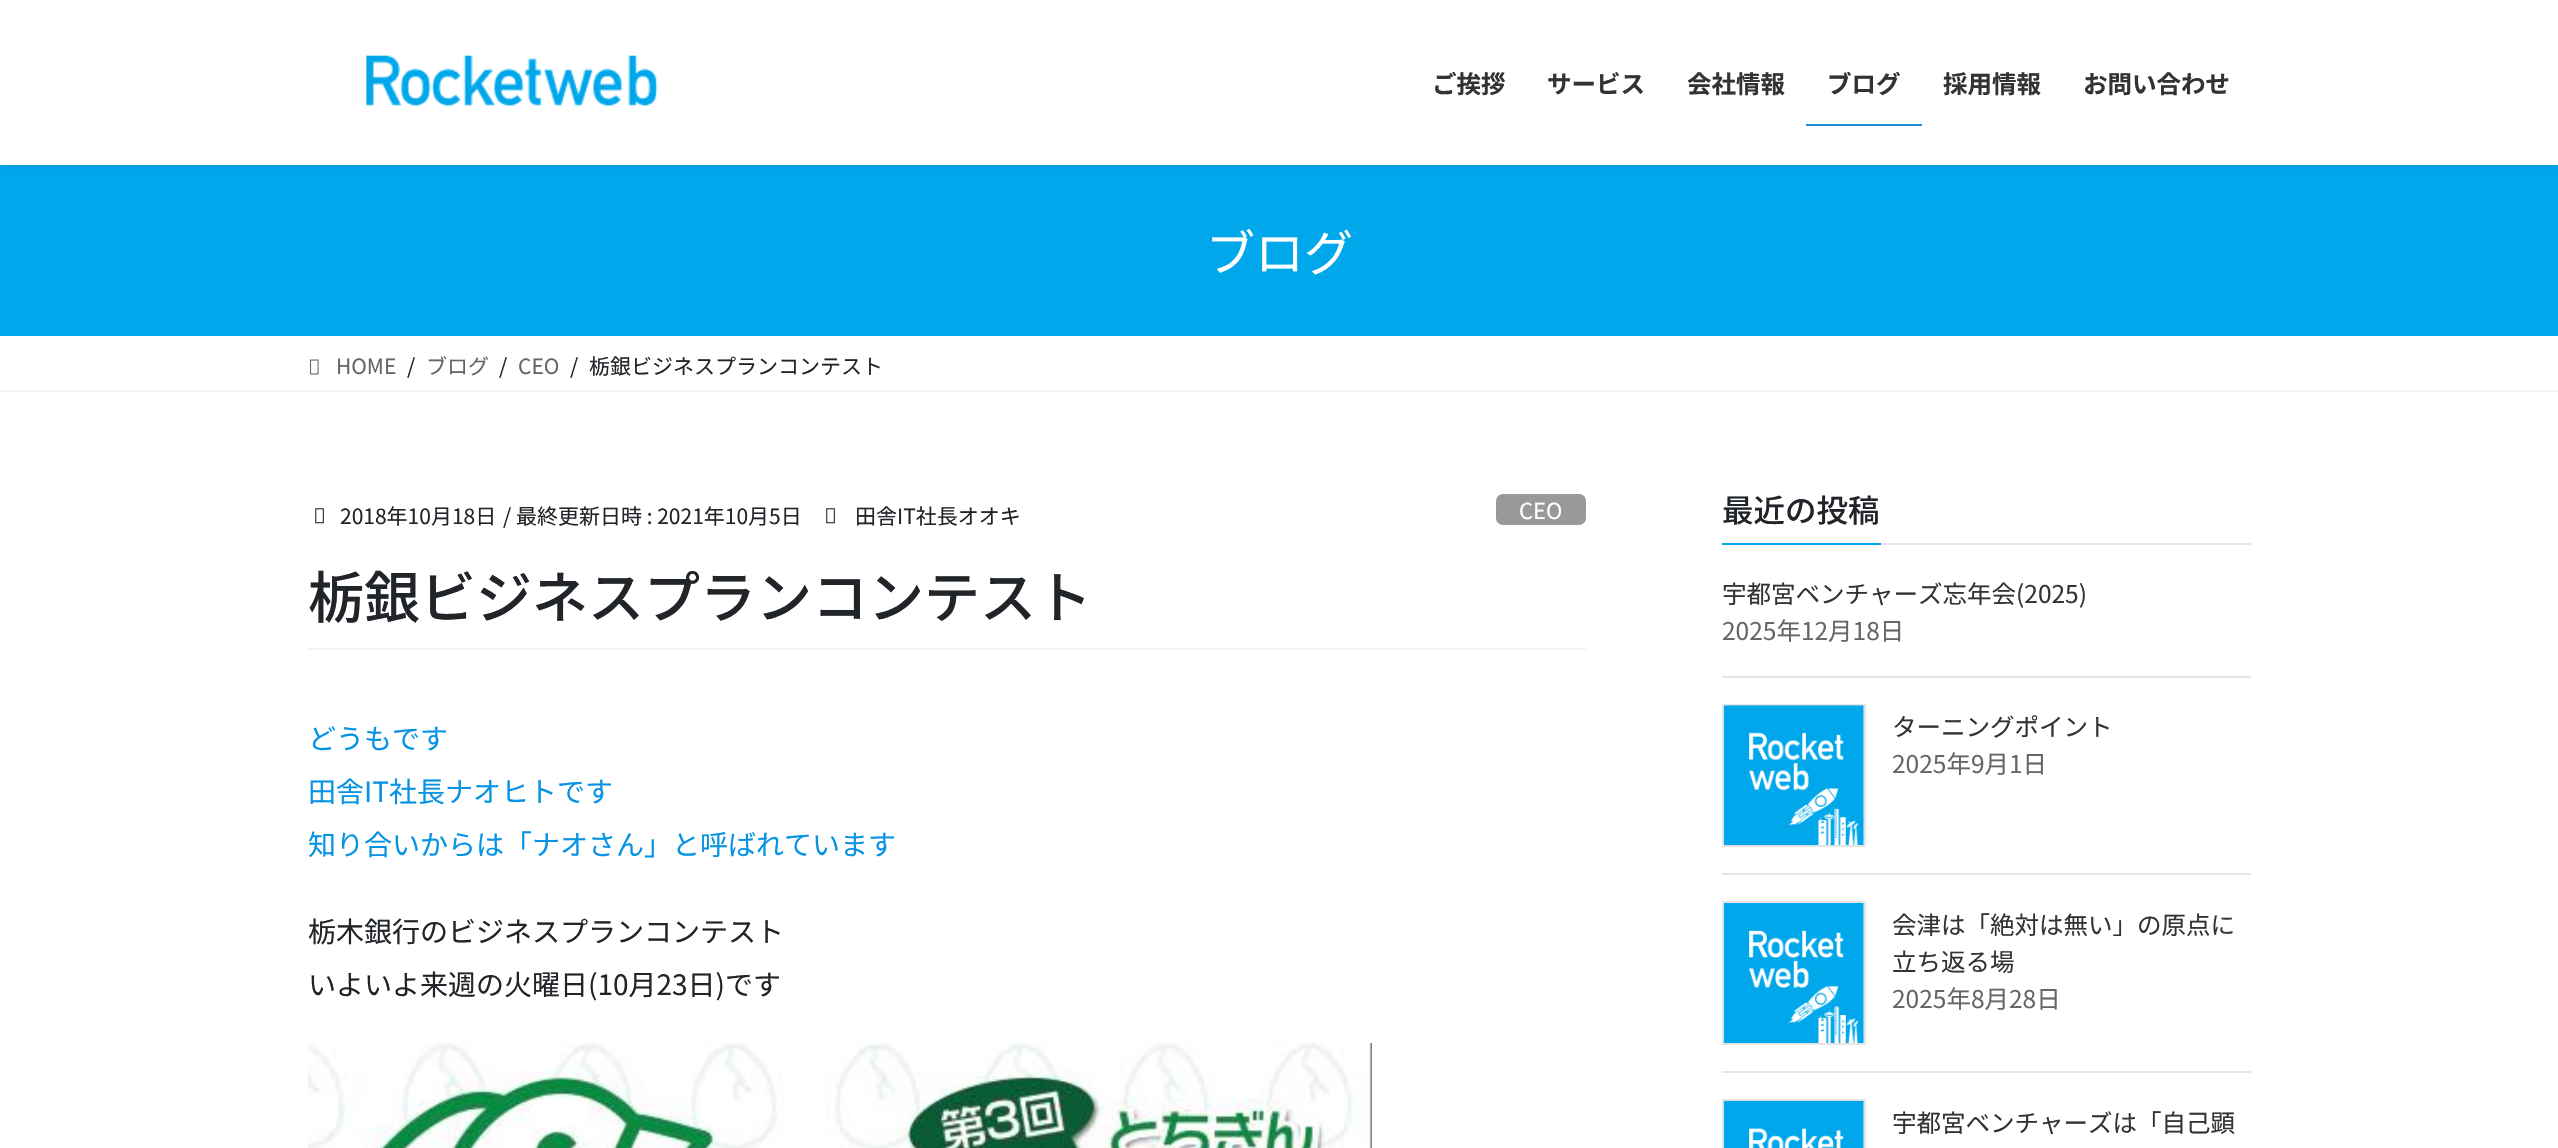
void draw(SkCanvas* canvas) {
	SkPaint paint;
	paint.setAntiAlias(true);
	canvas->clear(0xffffffff);
	paint.setColor(0xff00a7eb);
	canvas->drawRect(SkRect::MakeXYWH(0, 165, 2558, 171), paint);
	paint.setColor(0x1a000000);
	paint.setMaskFilter(SkMaskFilter::MakeBlur(kNormal_SkBlurStyle, 2.5));
	canvas->drawRect(SkRect::MakeXYWH(0, 2, 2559, 164), paint);
	paint.setMaskFilter(nullptr);
	paint.setColor(0xffffffff);
	canvas->drawRect(SkRect::MakeXYWH(0, 0, 2558, 165), paint);
	canvas->drawImageRect(SkImages::DeferredFromEncodedData(SkData::MakeFromFileName("img1.png")), SkRect::MakeXYWH(366, 55, 292, 51), SkSamplingOptions());
	SkFont f1(fontMgr->matchFamilyStyle("Noto Sans JP", SkFontStyle::Bold()), 24.5);
	f1.setSubpixel(true);
	paint.setColor(0xff333333);
	canvas->drawString("ご挨拶", 1432, 93, f1, paint);
	canvas->drawString("サービス", 1547, 93, f1, paint);
	canvas->drawString("会社情報", 1687, 93, f1, paint);
	canvas->drawString("ブログ", 1827, 93, f1, paint);
	paint.setColor(0xff208dd6);
	canvas->drawRect(SkRect::MakeXYWH(1806, 124, 116, 2), paint);
	paint.setColor(0xff333333);
	canvas->drawString("採用情報", 1943, 93, f1, paint);
	canvas->drawString("お問い合わせ", 2083, 93, f1, paint);
	SkFont f2(fontMgr->matchFamilyStyle("Noto Sans JP", SkFontStyle::Normal()), 49);
	f2.setSubpixel(true);
	paint.setColor(0xffffffff);
	canvas->drawString("ブログ", 1206, 271, f2, paint);
	paint.setColor(0xfff2f2f2);
	canvas->drawRect(SkRect::MakeXYWH(0, 390, 2558, 2), paint);
	canvas->drawImageRect(SkImages::DeferredFromEncodedData(SkData::MakeFromFileName("img2.png")), SkRect::MakeXYWH(309, 359, 10, 16), SkSamplingOptions());
	SkFont f3(fontMgr->matchFamilyStyle("Noto Sans JP", SkFontStyle::Normal()), 21);
	f3.setSubpixel(true);
	paint.setColor(0xff666666);
	canvas->drawString("HOME", 336, 374, f3, paint);
	paint.setColor(0xff212529);
	canvas->drawString("/", 407, 374, f3, paint);
	paint.setColor(0xff666666);
	canvas->drawString("ブログ", 426, 374, f3, paint);
	paint.setColor(0xff212529);
	canvas->drawString("/", 499, 374, f3, paint);
	paint.setColor(0xff666666);
	canvas->drawString("CEO", 518, 374, f3, paint);
	paint.setColor(0xff212529);
	canvas->drawString("/", 570, 374, f3, paint);
	canvas->drawString("栃銀ビジネスプランコンテスト", 589, 374, f3, paint);
	paint.setColor(0xfff2f2f2);
	canvas->drawRect(SkRect::MakeXYWH(308, 648, 1278, 2), paint);
	canvas->drawImageRect(SkImages::DeferredFromEncodedData(SkData::MakeFromFileName("img3.png")), SkRect::MakeXYWH(315, 508, 9, 16), SkSamplingOptions());
	paint.setColor(0xff212529);
	canvas->drawString("2018年10月18日", 340, 524, f3, paint);
	canvas->drawString("/ 最終更新日時 : 2021年10月5日", 503, 524, f3, paint);
	canvas->drawImageRect(SkImages::DeferredFromEncodedData(SkData::MakeFromFileName("img3.png")), SkRect::MakeXYWH(826, 508, 9, 16), SkSamplingOptions());
	canvas->drawString("田舎IT社長オオキ", 855, 524, f3, paint);
	paint.setColor(0xff999999);
	canvas->drawRoundRect(SkRect::MakeXYWH(1496, 494, 90, 31), 7, 7, paint);
	SkFont f4(fontMgr->matchFamilyStyle("Noto Sans JP", SkFontStyle::Normal()), 22);
	f4.setSubpixel(true);
	paint.setColor(0xffffffff);
	canvas->drawString("CEO", 1519, 519, f4, paint);
	SkFont f5(fontMgr->matchFamilyStyle("Noto Sans JP", SkFontStyle(500, SkFontStyle::kNormal_Width, SkFontStyle::kUpright_Slant)), 56);
	f5.setSubpixel(true);
	paint.setColor(0xff212529);
	canvas->drawString("栃銀ビジネスプランコンテスト", 308, 618, f5, paint);
	SkFont f6(fontMgr->matchFamilyStyle("Noto Sans JP", SkFontStyle::Normal()), 28);
	f6.setSubpixel(true);
	paint.setColor(0xff0693e3);
	canvas->drawString("どうもです", 308, 749, f6, paint);
	canvas->drawString("田舎IT社長ナオヒトです", 308, 802, f6, paint);
	canvas->drawString("知り合いからは「ナオさん」と呼ばれています", 308, 855, f6, paint);
	paint.setColor(0xff212529);
	canvas->drawString("栃木銀行のビジネスプランコンテスト", 308, 942, f6, paint);
	canvas->drawString("いよいよ来週の火曜日(10月23日)です", 308, 995, f6, paint);
	canvas->drawImageRect(SkImages::DeferredFromEncodedData(SkData::MakeFromFileName("img4.png")), SkRect::MakeXYWH(308, 1043, 1064, 105), SkSamplingOptions());
	paint.setColor(0xffe6e6e6);
	canvas->drawRect(SkRect::MakeXYWH(1881, 543, 370, 2), paint);
	SkFont f7(fontMgr->matchFamilyStyle("Noto Sans JP", SkFontStyle(500, SkFontStyle::kNormal_Width, SkFontStyle::kUpright_Slant)), 31.5);
	f7.setSubpixel(true);
	paint.setColor(0xff212529);
	canvas->drawString("最近の投稿", 1722, 522, f7, paint);
	paint.setColor(0xff00a7eb);
	canvas->drawRect(SkRect::MakeXYWH(1722, 543, 159, 2), paint);
	paint.setColor(0xffe5e5e5);
	canvas->drawRect(SkRect::MakeXYWH(1722, 676, 529, 2), paint);
	SkFont f8(fontMgr->matchFamilyStyle("Noto Sans JP", SkFontStyle::Normal()), 24.5);
	f8.setSubpixel(true);
	paint.setColor(0xff333333);
	canvas->drawString("宇都宮ベンチャーズ忘年会(2025)", 1722, 603, f8, paint);
	paint.setColor(0xff666666);
	canvas->drawString("2025年12月18日", 1722, 640, f8, paint);
	paint.setColor(0xffe5e5e5);
	canvas->drawRect(SkRect::MakeXYWH(1722, 873, 529, 2), paint);
	paint.setStroke(true);
	paint.setStrokeWidth(2);
	canvas->drawRect(SkRect::MakeXYWH(1723, 705, 142, 141), paint);
	canvas->drawImageRect(SkImages::DeferredFromEncodedData(SkData::MakeFromFileName("img5.png")), SkRect::MakeXYWH(1723, 705, 141, 141), SkSamplingOptions());
	paint.setStroke(false);
	paint.setColor(0xff333333);
	canvas->drawString("ターニングポイント", 1892, 736, f8, paint);
	paint.setColor(0xff666666);
	canvas->drawString("2025年9月1日", 1892, 773, f8, paint);
	paint.setColor(0xffe5e5e5);
	canvas->drawRect(SkRect::MakeXYWH(1722, 1071, 529, 2), paint);
	paint.setStroke(true);
	canvas->drawRect(SkRect::MakeXYWH(1723, 902, 142, 142), paint);
	canvas->drawImageRect(SkImages::DeferredFromEncodedData(SkData::MakeFromFileName("img6.png")), SkRect::MakeXYWH(1723, 903, 141, 140), SkSamplingOptions());
	paint.setStroke(false);
	paint.setColor(0xff333333);
	canvas->drawString("会津は「絶対は無い」の原点に", 1892, 934, f8, paint);
	canvas->drawString("立ち返る場", 1892, 971, f8, paint);
	paint.setColor(0xff666666);
	canvas->drawString("2025年8月28日", 1892, 1008, f8, paint);
	paint.setStroke(true);
	paint.setColor(0xffe5e5e5);
	canvas->drawRect(SkRect::MakeXYWH(1723, 1100, 142, 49), paint);
	canvas->drawImageRect(SkImages::DeferredFromEncodedData(SkData::MakeFromFileName("img7.png")), SkRect::MakeXYWH(1723, 1100, 141, 48), SkSamplingOptions());
	paint.setStroke(false);
	paint.setColor(0xff333333);
	canvas->drawString("宇都宮ベンチャーズは「自己顕", 1892, 1132, f8, paint);
}
